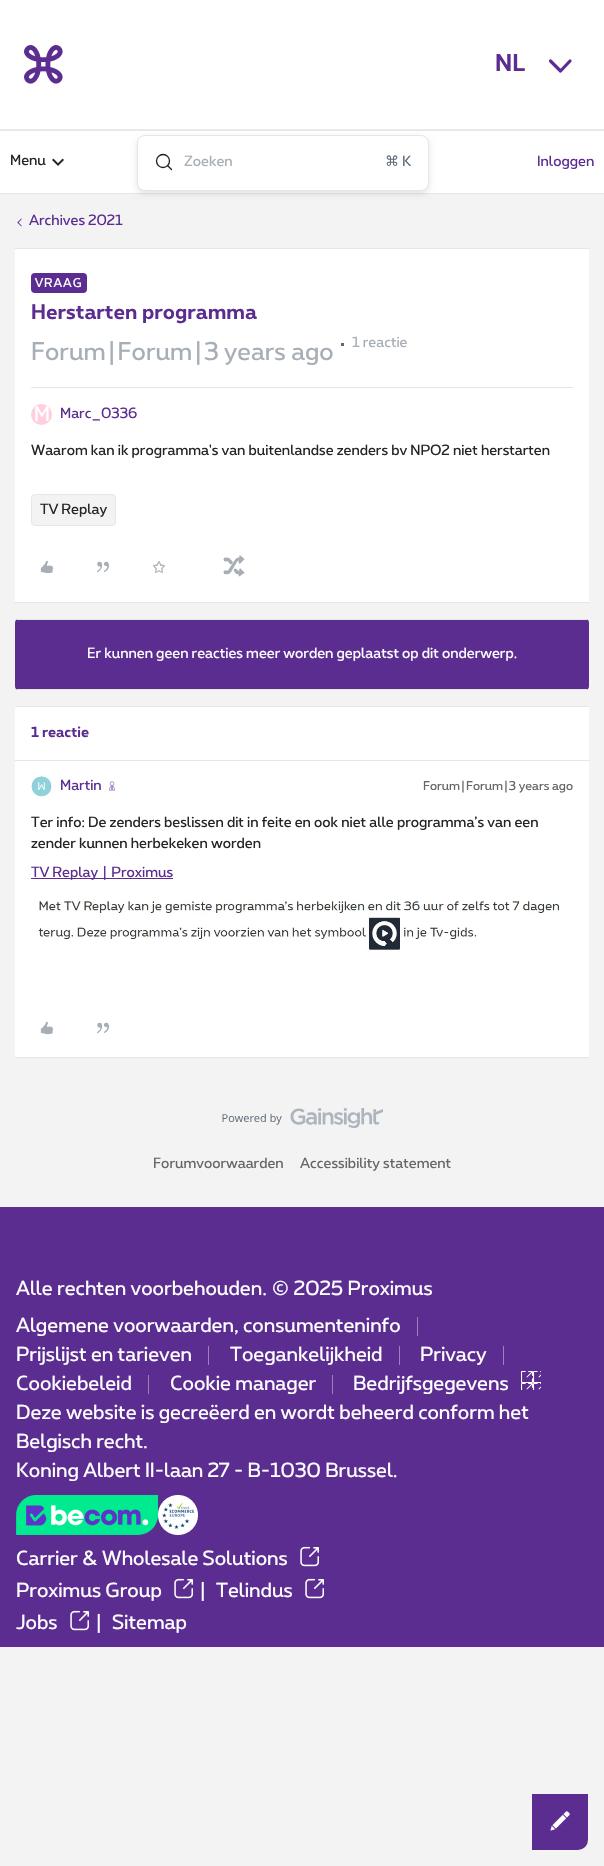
void draw(SkCanvas* canvas) {
	SkPaint paint;
	paint.setAntiAlias(true);
	auto spacedText = [&](const char* s, float x, float y, const SkFont& font, const SkPaint& ink, float letter, float word) {
		std::vector<SkGlyphID> glyphs(font.countText(s, strlen(s), SkTextEncoding::kUTF8));
		std::vector<float> xs(glyphs.size());
		font.textToGlyphs(s, strlen(s), SkTextEncoding::kUTF8, glyphs);
		font.getXPos(glyphs, xs, x);
		float extra = 0;
		for (size_t i = 0; i < glyphs.size(); i++) {
			xs[i] += extra;
			extra += letter + word * (glyphs[i] == font.unicharToGlyph(' '));
		}
		canvas->drawTextBlob(SkTextBlob::MakeFromPosHGlyphs(glyphs, xs, y, font), 0, 0, ink);
	};
	auto svgPath = [&](const char* data, bool evenOdd = false) {
		SkPath result = *SkParsePath::FromSVGString(data);
		if (evenOdd) result.setFillType(SkPathFillType::kEvenOdd);
		return result;
	};
	canvas->clear(0xfff3f3f3);
	paint.setColor(0xffffffff);
	canvas->drawRect(SkRect::MakeXYWH(0, 131, 604, 62), paint);
	paint.setColor(0xffe6e6e7);
	canvas->drawRect(SkRect::MakeXYWH(0, 130, 604, 1), paint);
	canvas->drawRect(SkRect::MakeXYWH(0, 193, 604, 1), paint);
	paint.setColor(0x1a000000);
	paint.setMaskFilter(SkMaskFilter::MakeBlur(kNormal_SkBlurStyle, 3));
	canvas->drawRoundRect(SkRect::MakeXYWH(137, 138, 292, 56), 8, 8, paint);
	paint.setMaskFilter(nullptr);
	paint.setColor(0xffffffff);
	canvas->drawRect(SkRect::MakeXYWH(0, 0, 604, 129), paint);
	paint.setColor(0xffebebeb);
	canvas->drawRect(SkRect::MakeXYWH(0, 129, 604, 1), paint);
	canvas->drawImageRect(SkImages::DeferredFromEncodedData(SkData::MakeFromFileName("img1.png")), SkRect::MakeXYWH(24, 45, 39, 39), SkSamplingOptions());
	SkFont f1(fontMgr->matchFamilyStyle("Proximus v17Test", SkFontStyle::Bold()), 23);
	f1.setSubpixel(true);
	paint.setColor(0xff5c2d91);
	canvas->drawString("NL", 495, 71, f1, paint);
	paint.setStroke(true);
	paint.setStrokeWidth(3.2);
	paint.setStrokeCap(SkPaint::kRound_Cap);
	paint.setStrokeJoin(SkPaint::kRound_Join);
	canvas->drawPath(svgPath("M570 61L560.5 71L550.5 61"), paint);
	SkFont f2(fontMgr->matchFamilyStyle("Proximus v17Test", SkFontStyle::Normal()), 14);
	f2.setSubpixel(true);
	paint.setStroke(false);
	paint.setColor(0xff252525);
	canvas->drawString("Menu", 10, 165, f2, paint);
	canvas->drawImageRect(SkImages::DeferredFromEncodedData(SkData::MakeFromFileName("img2.png")), SkRect::MakeXYWH(52, 158, 12, 8), SkSamplingOptions());
	paint.setColor(0xffffffff);
	canvas->drawRoundRect(SkRect::MakeXYWH(137.5, 135.5, 291, 55), 7.5, 7.5, paint);
	paint.setStroke(true);
	paint.setStrokeWidth(1);
	paint.setStrokeCap(SkPaint::kButt_Cap);
	paint.setStrokeJoin(SkPaint::kMiter_Join);
	paint.setColor(0xffe6e6e7);
	canvas->drawRoundRect(SkRect::MakeXYWH(137.5, 135.5, 291, 55), 7.5, 7.5, paint);
	paint.setStrokeWidth(1.3);
	paint.setColor(0xff181f26);
	canvas->drawCircle(163, 161, 6.5, paint);
	paint.setStrokeCap(SkPaint::kRound_Cap);
	canvas->drawPath(svgPath("M167.5 165.5L171.5 169.5"), paint);
	paint.setStroke(false);
	paint.setColor(0xffa7aeb5);
	canvas->drawString("Zoeken", 184, 166, f2, paint);
	SkFont f3(fontMgr->matchFamilyStyle("DejaVu Sans", SkFontStyle::Normal()), 14);
	f3.setSubpixel(true);
	paint.setColor(0xff5f6c7a);
	canvas->drawString("⌘", 385, 166, f3, paint);
	canvas->drawString("K", 402, 166, f2, paint);
	paint.setColor(0xff5c2d91);
	canvas->drawString("Inloggen", 537, 166, f2, paint);
	canvas->drawImageRect(SkImages::DeferredFromEncodedData(SkData::MakeFromFileName("img3.png")), SkRect::MakeXYWH(17, 218, 5, 9), SkSamplingOptions());
	canvas->drawString("Archives 2021", 29, 225, f2, paint);
	paint.setColor(0xffffffff);
	canvas->drawRect(SkRect::MakeXYWH(15, 249, 574, 353), paint);
	paint.setColor(0xffe6e6e7);
	canvas->drawRect(SkRect::MakeXYWH(15, 248, 574, 1), paint);
	canvas->drawRect(SkRect::MakeXYWH(15, 602, 574, 1), paint);
	paint.setColor(0xff5c2d91);
	canvas->drawRoundRect(SkRect::MakeXYWH(31, 273, 56, 20), 4, 4, paint);
	SkFont f4(fontMgr->matchFamilyStyle("Proximus v17Test", SkFontStyle::Normal()), 12);
	f4.setSubpixel(true);
	paint.setColor(0xffffffff);
	spacedText("VRAAG", 35, 287, f4, paint, 1, 0);
	SkFont f5(fontMgr->matchFamilyStyle("Proximus v17Test", SkFontStyle::Bold()), 20);
	f5.setSubpixel(true);
	paint.setColor(0xff5c2d91);
	canvas->drawString("Herstarten programma", 31, 319, f5, paint);
	SkFont f6(fontMgr->matchFamilyStyle("Proximus v17Test", SkFontStyle::Normal()), 24.2);
	f6.setSubpixel(true);
	paint.setColor(0xffa7aeb5);
	canvas->drawString("Forum|Forum|3 years ago", 31, 360, f6, paint);
	paint.setColor(0xff666666);
	canvas->drawRect(SkRect::MakeXYWH(341, 343, 3, 3), paint);
	paint.setColor(0xffa7aeb5);
	canvas->drawString("1 reactie", 352, 347, f2, paint);
	paint.setColor(0xffe6e6e7);
	canvas->drawRect(SkRect::MakeXYWH(31, 387, 542, 1), paint);
	paint.setColor(0xffffcee0);
	canvas->drawCircle(41.5, 414.5, 10.5, paint);
	SkFont f7(fontMgr->matchFamilyStyle("Proximus v17Test", SkFontStyle::Normal()), 20);
	f7.setSubpixel(true);
	paint.setColor(0xffffffff);
	canvas->drawString("M", 34, 421, f7, paint);
	paint.setColor(0xff5c2d91);
	canvas->drawString("Marc_0336", 60, 418, f2, paint);
	paint.setColor(0xff252525);
	canvas->drawString("Waarom kan ik programma's van buitenlandse zenders bv NPO2 niet herstarten", 31, 455, f2, paint);
	paint.setColor(0xfff3f3f3);
	canvas->drawRoundRect(SkRect::MakeXYWH(31.5, 494.5, 84, 31), 3.5, 3.5, paint);
	paint.setStroke(true);
	paint.setStrokeWidth(1);
	paint.setStrokeCap(SkPaint::kButt_Cap);
	paint.setColor(0xffe6e6e7);
	canvas->drawRoundRect(SkRect::MakeXYWH(31.5, 494.5, 84, 31), 3.5, 3.5, paint);
	paint.setStroke(false);
	paint.setColor(0xff252525);
	canvas->drawString("TV Replay", 40, 514, f2, paint);
	canvas->drawImageRect(SkImages::DeferredFromEncodedData(SkData::MakeFromFileName("img4.png")), SkRect::MakeXYWH(40, 560, 14, 14), SkSamplingOptions());
	canvas->drawImageRect(SkImages::DeferredFromEncodedData(SkData::MakeFromFileName("img5.png")), SkRect::MakeXYWH(97, 561, 13, 12), SkSamplingOptions());
	canvas->drawImageRect(SkImages::DeferredFromEncodedData(SkData::MakeFromFileName("img6.png")), SkRect::MakeXYWH(153, 561, 12, 13), SkSamplingOptions());
	canvas->drawImageRect(SkImages::DeferredFromEncodedData(SkData::MakeFromFileName("img7.png")), SkRect::MakeXYWH(223, 555, 22, 22), SkSamplingOptions());
	paint.setColor(0xff5c2d91);
	canvas->drawRoundRect(SkRect::MakeXYWH(15, 619, 574, 71), 4, 4, paint);
	paint.setColor(0xffe6e6e7);
	canvas->drawRect(SkRect::MakeXYWH(17, 619, 570, 1), paint);
	canvas->drawRect(SkRect::MakeXYWH(17, 689, 570, 1), paint);
	paint.setColor(0xffffffff);
	canvas->drawString("Er kunnen geen reacties meer worden geplaatst op dit onderwerp.", 87, 658, f2, paint);
	canvas->drawRect(SkRect::MakeXYWH(15, 707, 574, 350), paint);
	paint.setColor(0xffe6e6e7);
	canvas->drawRect(SkRect::MakeXYWH(15, 706, 574, 1), paint);
	canvas->drawRect(SkRect::MakeXYWH(15, 1057, 574, 1), paint);
	canvas->drawRect(SkRect::MakeXYWH(15, 760, 574, 1), paint);
	SkFont f8(fontMgr->matchFamilyStyle("Proximus v17Test", SkFontStyle::Bold()), 14);
	f8.setSubpixel(true);
	paint.setColor(0xff5c2d91);
	canvas->drawString("1 reactie", 31, 737, f8, paint);
	canvas->drawImageRect(SkImages::DeferredFromEncodedData(SkData::MakeFromFileName("img8.png")), SkRect::MakeXYWH(31, 776, 21, 21), SkSamplingOptions());
	canvas->drawString("Martin", 60, 790, f2, paint);
	canvas->drawImageRect(SkImages::DeferredFromEncodedData(SkData::MakeFromFileName("img9.png")), SkRect::MakeXYWH(109, 781, 6, 10), SkSamplingOptions());
	paint.setColor(0xff666666);
	canvas->drawString("Forum|Forum|3 years ago", 423, 790, f4, paint);
	paint.setColor(0xff252525);
	canvas->drawString("Ter info: De zenders beslissen dit in feite en ook niet alle programma’s van een", 31, 827, f2, paint);
	canvas->drawString("zender kunnen herbekeken worden", 31, 848, f2, paint);
	paint.setColor(0xff5c2d91);
	canvas->drawRect(SkRect::MakeXYWH(31, 878, 142, 1), paint);
	canvas->drawString("TV Replay | Proximus", 31, 877, f2, paint);
	canvas->drawImageRect(SkImages::DeferredFromEncodedData(SkData::MakeFromFileName("img10.png")), SkRect::MakeXYWH(38, 900, 523, 51), SkSamplingOptions());
	canvas->drawImageRect(SkImages::DeferredFromEncodedData(SkData::MakeFromFileName("img4.png")), SkRect::MakeXYWH(40, 1021, 14, 14), SkSamplingOptions());
	canvas->drawImageRect(SkImages::DeferredFromEncodedData(SkData::MakeFromFileName("img5.png")), SkRect::MakeXYWH(97, 1022, 13, 12), SkSamplingOptions());
	canvas->drawImageRect(SkImages::DeferredFromEncodedData(SkData::MakeFromFileName("img11.png")), SkRect::MakeXYWH(222, 1108, 161, 20), SkSamplingOptions());
	paint.setColor(0xff666666);
	canvas->drawString("Forumvoorwaarden", 153, 1168, f2, paint);
	canvas->drawString("Accessibility statement", 300, 1168, f2, paint);
	paint.setColor(0xff5c2d91);
	canvas->drawRect(SkRect::MakeXYWH(0, 1207, 604, 440), paint);
	SkFont f9(fontMgr->matchFamilyStyle("Proximus v17Test", SkFontStyle::Normal()), 19.3);
	f9.setSubpixel(true);
	paint.setColor(0xffffffff);
	canvas->drawString("Alle rechten voorbehouden. © 2025 Proximus", 16, 1295, f9, paint);
	canvas->drawString("Algemene voorwaarden, consumenteninfo", 16, 1332, f9, paint);
	paint.setColor(0xff9d81bd);
	canvas->drawRect(SkRect::MakeXYWH(417, 1317, 1, 19), paint);
	paint.setColor(0xffffffff);
	canvas->drawString("Prijslijst en tarieven", 16, 1361, f9, paint);
	paint.setColor(0xff9d81bd);
	canvas->drawRect(SkRect::MakeXYWH(208, 1346, 1, 19), paint);
	paint.setColor(0xffffffff);
	canvas->drawString("Toegankelijkheid", 230, 1361, f9, paint);
	paint.setColor(0xff9d81bd);
	canvas->drawRect(SkRect::MakeXYWH(399, 1346, 1, 19), paint);
	paint.setColor(0xffffffff);
	canvas->drawString("Privacy", 420, 1361, f9, paint);
	paint.setColor(0xff9d81bd);
	canvas->drawRect(SkRect::MakeXYWH(503, 1346, 1, 19), paint);
	paint.setColor(0xffffffff);
	canvas->drawString("Cookiebeleid", 16, 1390, f9, paint);
	paint.setColor(0xff9d81bd);
	canvas->drawRect(SkRect::MakeXYWH(148, 1375, 1, 19), paint);
	paint.setColor(0xffffffff);
	canvas->drawString("Cookie manager", 170, 1390, f9, paint);
	paint.setColor(0xff9d81bd);
	canvas->drawRect(SkRect::MakeXYWH(332, 1375, 1, 19), paint);
	paint.setColor(0xffffffff);
	canvas->drawString("Bedrijfsgegevens", 353, 1390, f9, paint);
	canvas->drawImageRect(SkImages::DeferredFromEncodedData(SkData::MakeFromFileName("img12.png")), SkRect::MakeXYWH(521, 1371, 20, 19), SkSamplingOptions());
	canvas->drawString("Deze website is gecreëerd en wordt beheerd conform het", 16, 1419, f9, paint);
	canvas->drawString("Belgisch recht.", 16, 1448, f9, paint);
	canvas->drawString("Koning Albert II-laan 27 - B-1030 Brussel.", 16, 1477, f9, paint);
	canvas->drawImageRect(SkImages::DeferredFromEncodedData(SkData::MakeFromFileName("img13.png")), SkRect::MakeXYWH(16, 1495, 142, 40), SkSamplingOptions());
	canvas->drawImageRect(SkImages::DeferredFromEncodedData(SkData::MakeFromFileName("img14.png")), SkRect::MakeXYWH(158, 1495, 40, 40), SkSamplingOptions());
	canvas->drawString("Carrier & Wholesale Solutions", 16, 1565, f9, paint);
	canvas->drawImageRect(SkImages::DeferredFromEncodedData(SkData::MakeFromFileName("img15.png")), SkRect::MakeXYWH(300, 1546, 19, 21), SkSamplingOptions());
	canvas->drawString("Proximus Group", 16, 1597, f9, paint);
	canvas->drawImageRect(SkImages::DeferredFromEncodedData(SkData::MakeFromFileName("img15.png")), SkRect::MakeXYWH(174, 1578, 19, 21), SkSamplingOptions());
	canvas->drawString("|", 198, 1597, f9, paint);
	canvas->drawString("Telindus", 216, 1597, f9, paint);
	canvas->drawImageRect(SkImages::DeferredFromEncodedData(SkData::MakeFromFileName("img15.png")), SkRect::MakeXYWH(305, 1578, 19, 21), SkSamplingOptions());
	canvas->drawString("Jobs", 16, 1629, f9, paint);
	canvas->drawImageRect(SkImages::DeferredFromEncodedData(SkData::MakeFromFileName("img15.png")), SkRect::MakeXYWH(70, 1610, 19, 21), SkSamplingOptions());
	canvas->drawString("|", 94, 1629, f9, paint);
	canvas->drawString("Sitemap", 112, 1629, f9, paint);
	paint.setColor(0xff5c2d91);
	canvas->drawPath(svgPath("M533 1795H587V1840C587 1845 583 1849 578 1849H533Z"), paint);
	paint.setStroke(true);
	paint.setStrokeWidth(2);
	canvas->drawPath(svgPath("M533 1795H587V1840C587 1845 583 1849 578 1849H533Z"), paint);
	canvas->drawImageRect(SkImages::DeferredFromEncodedData(SkData::MakeFromFileName("img16.png")), SkRect::MakeXYWH(550, 1811, 20, 20), SkSamplingOptions());
}
